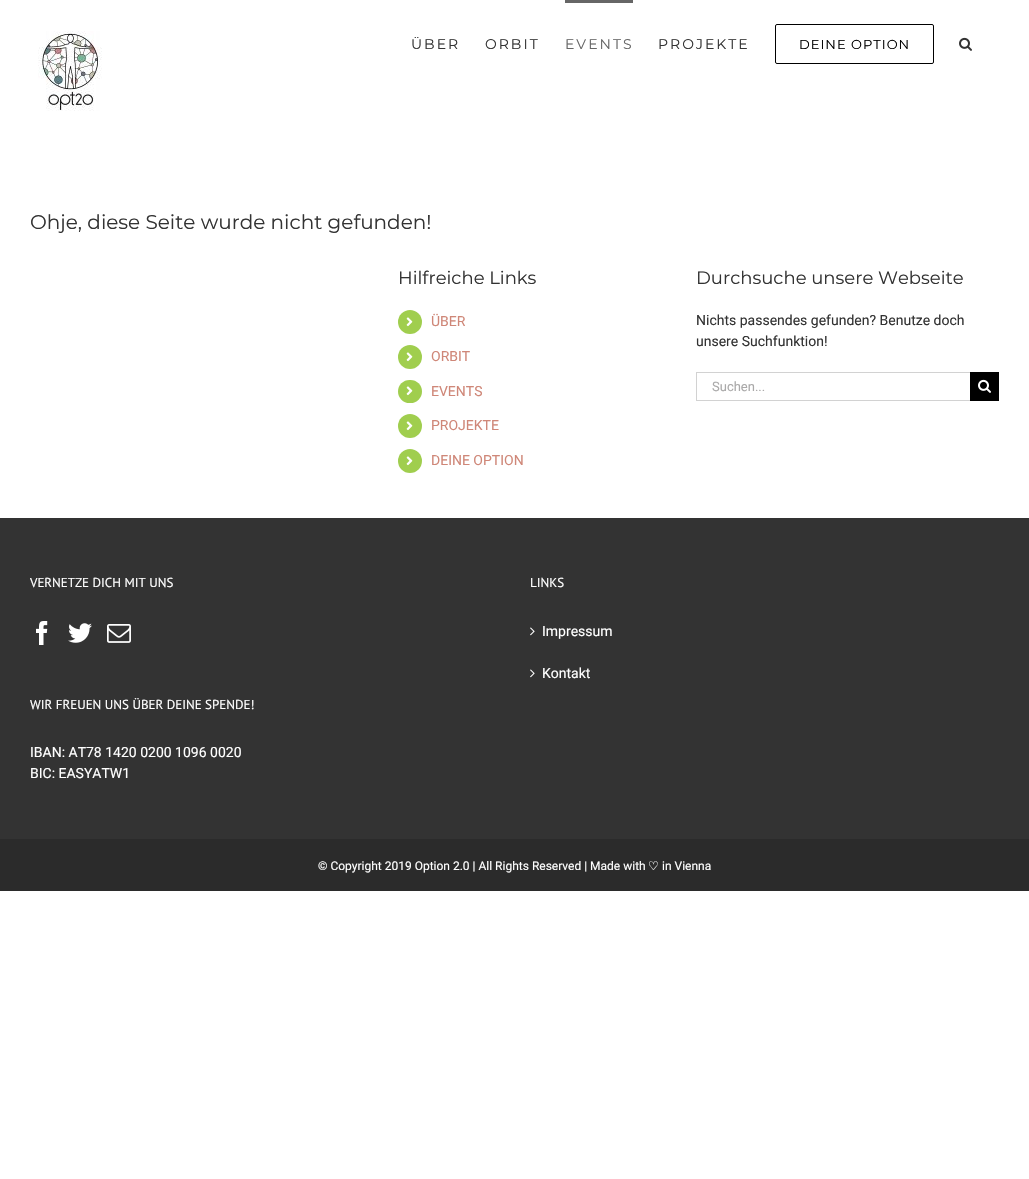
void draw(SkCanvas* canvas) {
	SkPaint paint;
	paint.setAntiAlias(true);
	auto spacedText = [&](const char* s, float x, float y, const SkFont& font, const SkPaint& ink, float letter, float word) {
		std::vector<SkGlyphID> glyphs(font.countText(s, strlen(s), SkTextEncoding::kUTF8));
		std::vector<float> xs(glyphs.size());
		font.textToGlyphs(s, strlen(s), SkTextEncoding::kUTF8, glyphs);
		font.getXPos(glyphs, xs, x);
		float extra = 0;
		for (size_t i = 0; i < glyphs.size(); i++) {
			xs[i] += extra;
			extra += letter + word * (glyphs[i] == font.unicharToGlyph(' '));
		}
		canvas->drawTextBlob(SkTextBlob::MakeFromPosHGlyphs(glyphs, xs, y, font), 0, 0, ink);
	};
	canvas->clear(0xffffffff);
	canvas->drawImageRect(SkImages::DeferredFromEncodedData(SkData::MakeFromFileName("img1.png")), SkRect::MakeXYWH(38, 31, 64, 80), SkSamplingOptions());
	SkFont f1(fontMgr->matchFamilyStyle("Montserrat", SkFontStyle(100, SkFontStyle::kNormal_Width, SkFontStyle::kUpright_Slant)), 14);
	f1.setSubpixel(true);
	paint.setColor(0xff333333);
	spacedText("ÜBER", 411, 49, f1, paint, 2, 0);
	spacedText("ORBIT", 485, 49, f1, paint, 2, 0);
	paint.setColor(0xff666666);
	canvas->drawRect(SkRect::MakeXYWH(565, 0, 68, 3), paint);
	spacedText("EVENTS", 565, 49, f1, paint, 2, 0);
	paint.setColor(0xff333333);
	spacedText("PROJEKTE", 658, 49, f1, paint, 2, 0);
	paint.setStroke(true);
	paint.setStrokeWidth(1);
	paint.setColor(0xff000000);
	canvas->drawRoundRect(SkRect::MakeXYWH(775.5, 24.5, 158, 39), 1.5, 1.5, paint);
	SkFont f2(fontMgr->matchFamilyStyle("Montserrat", SkFontStyle(100, SkFontStyle::kNormal_Width, SkFontStyle::kUpright_Slant)), 13);
	f2.setSubpixel(true);
	paint.setStroke(false);
	spacedText("DEINE OPTION", 799, 49, f2, paint, 1, 0);
	canvas->drawImageRect(SkImages::DeferredFromEncodedData(SkData::MakeFromFileName("img2.png")), SkRect::MakeXYWH(959, 37, 13, 14), SkSamplingOptions());
	SkFont f3(fontMgr->matchFamilyStyle("Montserrat", SkFontStyle(100, SkFontStyle::kNormal_Width, SkFontStyle::kUpright_Slant)), 20);
	f3.setSubpixel(true);
	paint.setColor(0xff333333);
	canvas->drawString("Ohje, diese Seite wurde nicht gefunden!", 30, 229, f3, paint);
	SkFont f4(fontMgr->matchFamilyStyle("Montserrat", SkFontStyle(100, SkFontStyle::kNormal_Width, SkFontStyle::kUpright_Slant)), 18);
	f4.setSubpixel(true);
	canvas->drawString("Hilfreiche Links", 398, 284, f4, paint);
	paint.setColor(0xffa0ce4e);
	canvas->drawCircle(410, 322, 12, paint);
	canvas->drawImageRect(SkImages::DeferredFromEncodedData(SkData::MakeFromFileName("img3.png")), SkRect::MakeXYWH(406, 317, 7, 10), SkSamplingOptions());
	SkFont f5(fontMgr->matchFamilyStyle("Roboto", SkFontStyle::Normal()), 14);
	f5.setSubpixel(true);
	paint.setColor(0xffcf8778);
	canvas->drawString("ÜBER", 431, 326, f5, paint);
	paint.setColor(0xffa0ce4e);
	canvas->drawCircle(410, 357, 12, paint);
	canvas->drawImageRect(SkImages::DeferredFromEncodedData(SkData::MakeFromFileName("img3.png")), SkRect::MakeXYWH(406, 352, 7, 10), SkSamplingOptions());
	paint.setColor(0xffcf8778);
	canvas->drawString("ORBIT", 431, 361, f5, paint);
	paint.setColor(0xffa0ce4e);
	canvas->drawRoundRect(SkRect::MakeXYWH(398, 380, 24, 23), 11.5, 11.5, paint);
	canvas->drawImageRect(SkImages::DeferredFromEncodedData(SkData::MakeFromFileName("img3.png")), SkRect::MakeXYWH(406, 386, 7, 10), SkSamplingOptions());
	paint.setColor(0xffcf8778);
	canvas->drawString("EVENTS", 431, 396, f5, paint);
	paint.setColor(0xffa0ce4e);
	canvas->drawCircle(410, 426, 12, paint);
	canvas->drawImageRect(SkImages::DeferredFromEncodedData(SkData::MakeFromFileName("img3.png")), SkRect::MakeXYWH(406, 421, 7, 10), SkSamplingOptions());
	paint.setColor(0xffcf8778);
	canvas->drawString("PROJEKTE", 431, 430, f5, paint);
	paint.setColor(0xffa0ce4e);
	canvas->drawCircle(410, 461, 12, paint);
	canvas->drawImageRect(SkImages::DeferredFromEncodedData(SkData::MakeFromFileName("img3.png")), SkRect::MakeXYWH(406, 456, 7, 10), SkSamplingOptions());
	paint.setColor(0xffcf8778);
	canvas->drawString("DEINE OPTION", 431, 465, f5, paint);
	paint.setColor(0xff333333);
	canvas->drawString("Durchsuche unsere Webseite", 696, 284, f4, paint);
	canvas->drawString("Nichts passendes gefunden? Benutze doch", 696, 325, f5, paint);
	canvas->drawString("unsere Suchfunktion!", 696, 346, f5, paint);
	paint.setColor(0xffd2d2d2);
	canvas->drawRect(SkRect::MakeXYWH(696, 372, 274, 1), paint);
	canvas->drawRect(SkRect::MakeXYWH(696, 400, 274, 1), paint);
	canvas->drawRect(SkRect::MakeXYWH(696, 372, 1, 29), paint);
	SkFont f6(fontMgr->matchFamilyStyle("Roboto", SkFontStyle::Normal()), 13);
	f6.setSubpixel(true);
	paint.setColor(0xffaaa9a9);
	canvas->drawString("Suchen...", 712, 391, f6, paint);
	paint.setColor(0xff000000);
	canvas->drawRect(SkRect::MakeXYWH(970, 372, 29, 29), paint);
	canvas->drawImageRect(SkImages::DeferredFromEncodedData(SkData::MakeFromFileName("img4.png")), SkRect::MakeXYWH(978, 379, 13, 14), SkSamplingOptions());
	paint.setColor(0xff333333);
	canvas->drawRect(SkRect::MakeXYWH(0, 518, 1029, 321), paint);
	SkFont f7(fontMgr->matchFamilyStyle("PT Sans", SkFontStyle::Normal()), 13);
	f7.setSubpixel(true);
	paint.setColor(0xffffffff);
	canvas->drawString("VERNETZE DICH MIT UNS", 30, 587, f7, paint);
	canvas->drawImageRect(SkImages::DeferredFromEncodedData(SkData::MakeFromFileName("img5.png")), SkRect::MakeXYWH(36, 621, 12, 24), SkSamplingOptions());
	canvas->drawImageRect(SkImages::DeferredFromEncodedData(SkData::MakeFromFileName("img6.png")), SkRect::MakeXYWH(68, 623, 24, 20), SkSamplingOptions());
	canvas->drawImageRect(SkImages::DeferredFromEncodedData(SkData::MakeFromFileName("img7.png")), SkRect::MakeXYWH(107, 624, 24, 19), SkSamplingOptions());
	canvas->drawString("LINKS", 530, 587, f7, paint);
	canvas->drawImageRect(SkImages::DeferredFromEncodedData(SkData::MakeFromFileName("img8.png")), SkRect::MakeXYWH(530, 627, 5, 9), SkSamplingOptions());
	canvas->drawString("Impressum", 542, 636, f5, paint);
	canvas->drawImageRect(SkImages::DeferredFromEncodedData(SkData::MakeFromFileName("img8.png")), SkRect::MakeXYWH(530, 669, 5, 9), SkSamplingOptions());
	canvas->drawString("Kontakt", 542, 678, f5, paint);
	canvas->drawString("WIR FREUEN UNS ÜBER DEINE SPENDE!", 30, 709, f7, paint);
	canvas->drawString("IBAN: AT78 1420 0200 1096 0020", 30, 757, f5, paint);
	canvas->drawString("BIC: EASYATW1", 30, 778, f5, paint);
	paint.setColor(0xff2b2b2b);
	canvas->drawRect(SkRect::MakeXYWH(0, 839, 1029, 52), paint);
	SkFont f8(fontMgr->matchFamilyStyle("Roboto", SkFontStyle::Normal()), 12);
	f8.setSubpixel(true);
	paint.setColor(0xffffffff);
	canvas->drawString("© Copyright 2019 Option 2.0 | All Rights Reserved | Made with", 318, 870, f8, paint);
	SkFont f9(fontMgr->matchFamilyStyle("DejaVu Sans", SkFontStyle::Normal()), 12);
	f9.setSubpixel(true);
	canvas->drawString("♡", 648, 870, f9, paint);
	canvas->drawString("in Vienna", 662, 870, f8, paint);
}
